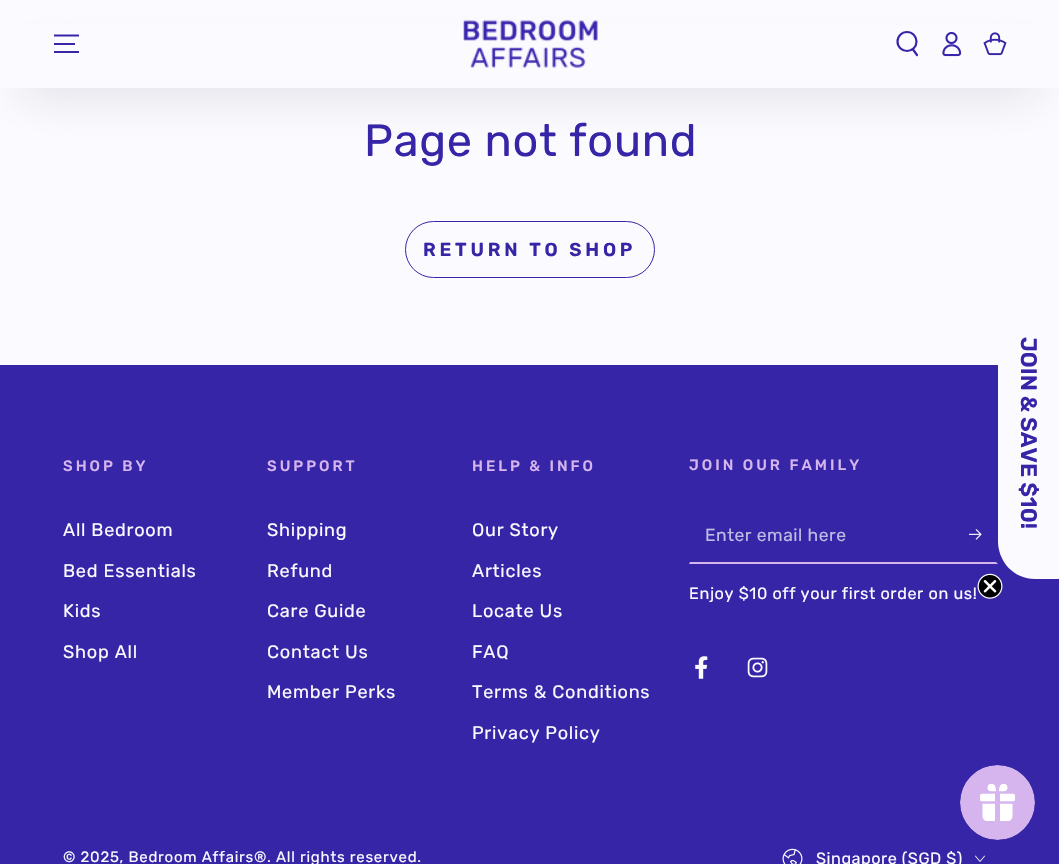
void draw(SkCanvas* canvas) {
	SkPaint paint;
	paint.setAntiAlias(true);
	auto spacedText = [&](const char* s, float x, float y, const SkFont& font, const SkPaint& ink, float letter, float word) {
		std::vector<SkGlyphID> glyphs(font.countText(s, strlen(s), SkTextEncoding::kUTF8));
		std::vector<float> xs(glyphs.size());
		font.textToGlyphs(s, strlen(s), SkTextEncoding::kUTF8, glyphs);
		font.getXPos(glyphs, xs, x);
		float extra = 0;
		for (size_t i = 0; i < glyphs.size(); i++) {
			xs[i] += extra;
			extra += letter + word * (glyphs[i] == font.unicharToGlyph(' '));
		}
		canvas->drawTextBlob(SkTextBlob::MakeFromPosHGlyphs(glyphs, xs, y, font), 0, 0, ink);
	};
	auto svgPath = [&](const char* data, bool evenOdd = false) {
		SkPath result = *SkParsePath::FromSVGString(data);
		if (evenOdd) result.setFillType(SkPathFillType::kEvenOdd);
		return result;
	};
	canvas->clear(0xfffbfaff);
	paint.setColor(0x33202022);
	paint.setMaskFilter(SkMaskFilter::MakeBlur(kNormal_SkBlurStyle, 25));
	canvas->drawRoundRect(SkRect::MakeXYWH(19, 63, 1022, 25), 12.5, 12.5, paint);
	paint.setMaskFilter(nullptr);
	paint.setColor(0xfffbfaff);
	canvas->drawRect(SkRect::MakeXYWH(0, 25, 1059, 63), paint);
	canvas->drawImageRect(SkImages::DeferredFromEncodedData(SkData::MakeFromFileName("img1.png")), SkRect::MakeXYWH(463, 20, 135, 48), SkSamplingOptions());
	paint.setStroke(true);
	paint.setStrokeWidth(2);
	paint.setColor(0xff3626a7);
	canvas->drawPath(svgPath("M54 52H79M54 44H75M54 35.5H79"), paint);
	paint.setStrokeWidth(2.2);
	canvas->drawCircle(907, 41.5, 9.5, paint);
	paint.setStrokeCap(SkPaint::kRound_Cap);
	canvas->drawPath(svgPath("M913 49.5L917 55"), paint);
	canvas->drawImageRect(SkImages::DeferredFromEncodedData(SkData::MakeFromFileName("img2.png")), SkRect::MakeXYWH(942, 31, 20, 26), SkSamplingOptions());
	canvas->drawImageRect(SkImages::DeferredFromEncodedData(SkData::MakeFromFileName("img3.png")), SkRect::MakeXYWH(983, 32, 24, 24), SkSamplingOptions());
	SkFont f1(fontMgr->matchFamilyStyle("Rubik", SkFontStyle::Normal()), 45);
	f1.setSubpixel(true);
	paint.setStroke(false);
	spacedText("Page not found", 364, 156, f1, paint, 0.75, 0);
	paint.setStroke(true);
	paint.setStrokeWidth(1);
	paint.setStrokeCap(SkPaint::kButt_Cap);
	canvas->drawRoundRect(SkRect::MakeXYWH(405.5, 221.5, 249, 56), 28, 28, paint);
	SkFont f2(fontMgr->matchFamilyStyle("Rubik", SkFontStyle(600, SkFontStyle::kNormal_Width, SkFontStyle::kUpright_Slant)), 18.75);
	f2.setSubpixel(true);
	paint.setStroke(false);
	spacedText("RETURN TO SHOP", 423, 256, f2, paint, 3.75, 0);
	canvas->drawRect(SkRect::MakeXYWH(0, 365, 1059, 499), paint);
	SkFont f3(fontMgr->matchFamilyStyle("Rubik", SkFontStyle(500, SkFontStyle::kNormal_Width, SkFontStyle::kUpright_Slant)), 15);
	f3.setSubpixel(true);
	paint.setColor(0xffd6b5ee);
	spacedText("SHOP BY", 63, 471, f3, paint, 3, 0);
	SkFont f4(fontMgr->matchFamilyStyle("Rubik", SkFontStyle::Normal()), 18.1);
	f4.setSubpixel(true);
	paint.setColor(0xfffbfaff);
	spacedText("All Bedroom", 63, 536, f4, paint, 0.75, 0);
	spacedText("Bed Essentials", 63, 577, f4, paint, 0.75, 0);
	spacedText("Kids", 63, 617, f4, paint, 0.75, 0);
	spacedText("Shop All", 63, 658, f4, paint, 0.75, 0);
	paint.setColor(0xffd6b5ee);
	spacedText("SUPPORT", 267, 471, f3, paint, 3, 0);
	paint.setColor(0xfffbfaff);
	spacedText("Shipping", 267, 536, f4, paint, 0.75, 0);
	spacedText("Refund", 267, 577, f4, paint, 0.75, 0);
	spacedText("Care Guide", 267, 617, f4, paint, 0.75, 0);
	spacedText("Contact Us", 267, 658, f4, paint, 0.75, 0);
	spacedText("Member Perks", 267, 698, f4, paint, 0.75, 0);
	paint.setColor(0xffd6b5ee);
	spacedText("HELP & INFO", 472, 471, f3, paint, 3, 0);
	paint.setColor(0xfffbfaff);
	spacedText("Our Story", 472, 536, f4, paint, 0.75, 0);
	spacedText("Articles", 472, 577, f4, paint, 0.75, 0);
	spacedText("Locate Us", 472, 617, f4, paint, 0.75, 0);
	spacedText("FAQ", 472, 658, f4, paint, 0.75, 0);
	spacedText("Terms & Conditions", 472, 698, f4, paint, 0.75, 0);
	spacedText("Privacy Policy", 472, 739, f4, paint, 0.75, 0);
	paint.setColor(0xffd6b5ee);
	spacedText("JOIN OUR FAMILY", 689, 470, f3, paint, 3, 0);
	canvas->drawPath(svgPath("M998 564H689L690 562H996Z"), paint);
	SkFont f5(fontMgr->matchFamilyStyle("Rubik", SkFontStyle::Normal()), 17.5);
	f5.setSubpixel(true);
	paint.setColor(0xffc0bae5);
	spacedText("Enter email here", 705, 541, f5, paint, 0.5, 0);
	canvas->drawImageRect(SkImages::DeferredFromEncodedData(SkData::MakeFromFileName("img4.png")), SkRect::MakeXYWH(969, 529, 13, 11), SkSamplingOptions());
	SkFont f6(fontMgr->matchFamilyStyle("Rubik", SkFontStyle::Normal()), 16.25);
	f6.setSubpixel(true);
	paint.setColor(0xfffbfaff);
	spacedText("Enjoy $10 off your first order on us!", 689, 599, f6, paint, 0.6, 0);
	canvas->drawImageRect(SkImages::DeferredFromEncodedData(SkData::MakeFromFileName("img5.png")), SkRect::MakeXYWH(695, 656, 13, 23), SkSamplingOptions());
	canvas->drawImageRect(SkImages::DeferredFromEncodedData(SkData::MakeFromFileName("img6.png")), SkRect::MakeXYWH(747, 657, 21, 21), SkSamplingOptions());
	SkFont f7(fontMgr->matchFamilyStyle("Rubik", SkFontStyle::Normal()), 15);
	f7.setSubpixel(true);
	spacedText("© 2025, Bedroom Affairs®. All rights reserved.", 63, 862, f7, paint, 0.75, 0);
	canvas->drawImageRect(SkImages::DeferredFromEncodedData(SkData::MakeFromFileName("img7.png")), SkRect::MakeXYWH(782, 848, 21, 16), SkSamplingOptions());
	spacedText("Singapore (SGD $)", 816, 864, f6, paint, 0.5, 0);
	canvas->drawImageRect(SkImages::DeferredFromEncodedData(SkData::MakeFromFileName("img8.png")), SkRect::MakeXYWH(975, 855, 10, 7), SkSamplingOptions());
	canvas->drawPath(svgPath("M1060 286V579H1035C1014 579 998 562 998 541V324C998 303 1014 286 1035 286Z"), paint);
	SkFont f8(fontMgr->matchFamilyStyle("Rubik", SkFontStyle(600, SkFontStyle::kNormal_Width, SkFontStyle::kUpright_Slant)), 22.5);
	f8.setSubpixel(true);
	paint.setColor(0xff3626a7);
	canvas->save();
	canvas->rotate(90, 1021, 337);
	canvas->drawString("JOIN & SAVE $10!", 1021, 337, f8, paint);
	canvas->restore();
	canvas->drawImageRect(SkImages::DeferredFromEncodedData(SkData::MakeFromFileName("img9.png")), SkRect::MakeXYWH(977, 573, 26, 26), SkSamplingOptions());
	canvas->drawImageRect(SkImages::DeferredFromEncodedData(SkData::MakeFromFileName("img10.png")), SkRect::MakeXYWH(960, 765, 75, 75), SkSamplingOptions());
}
